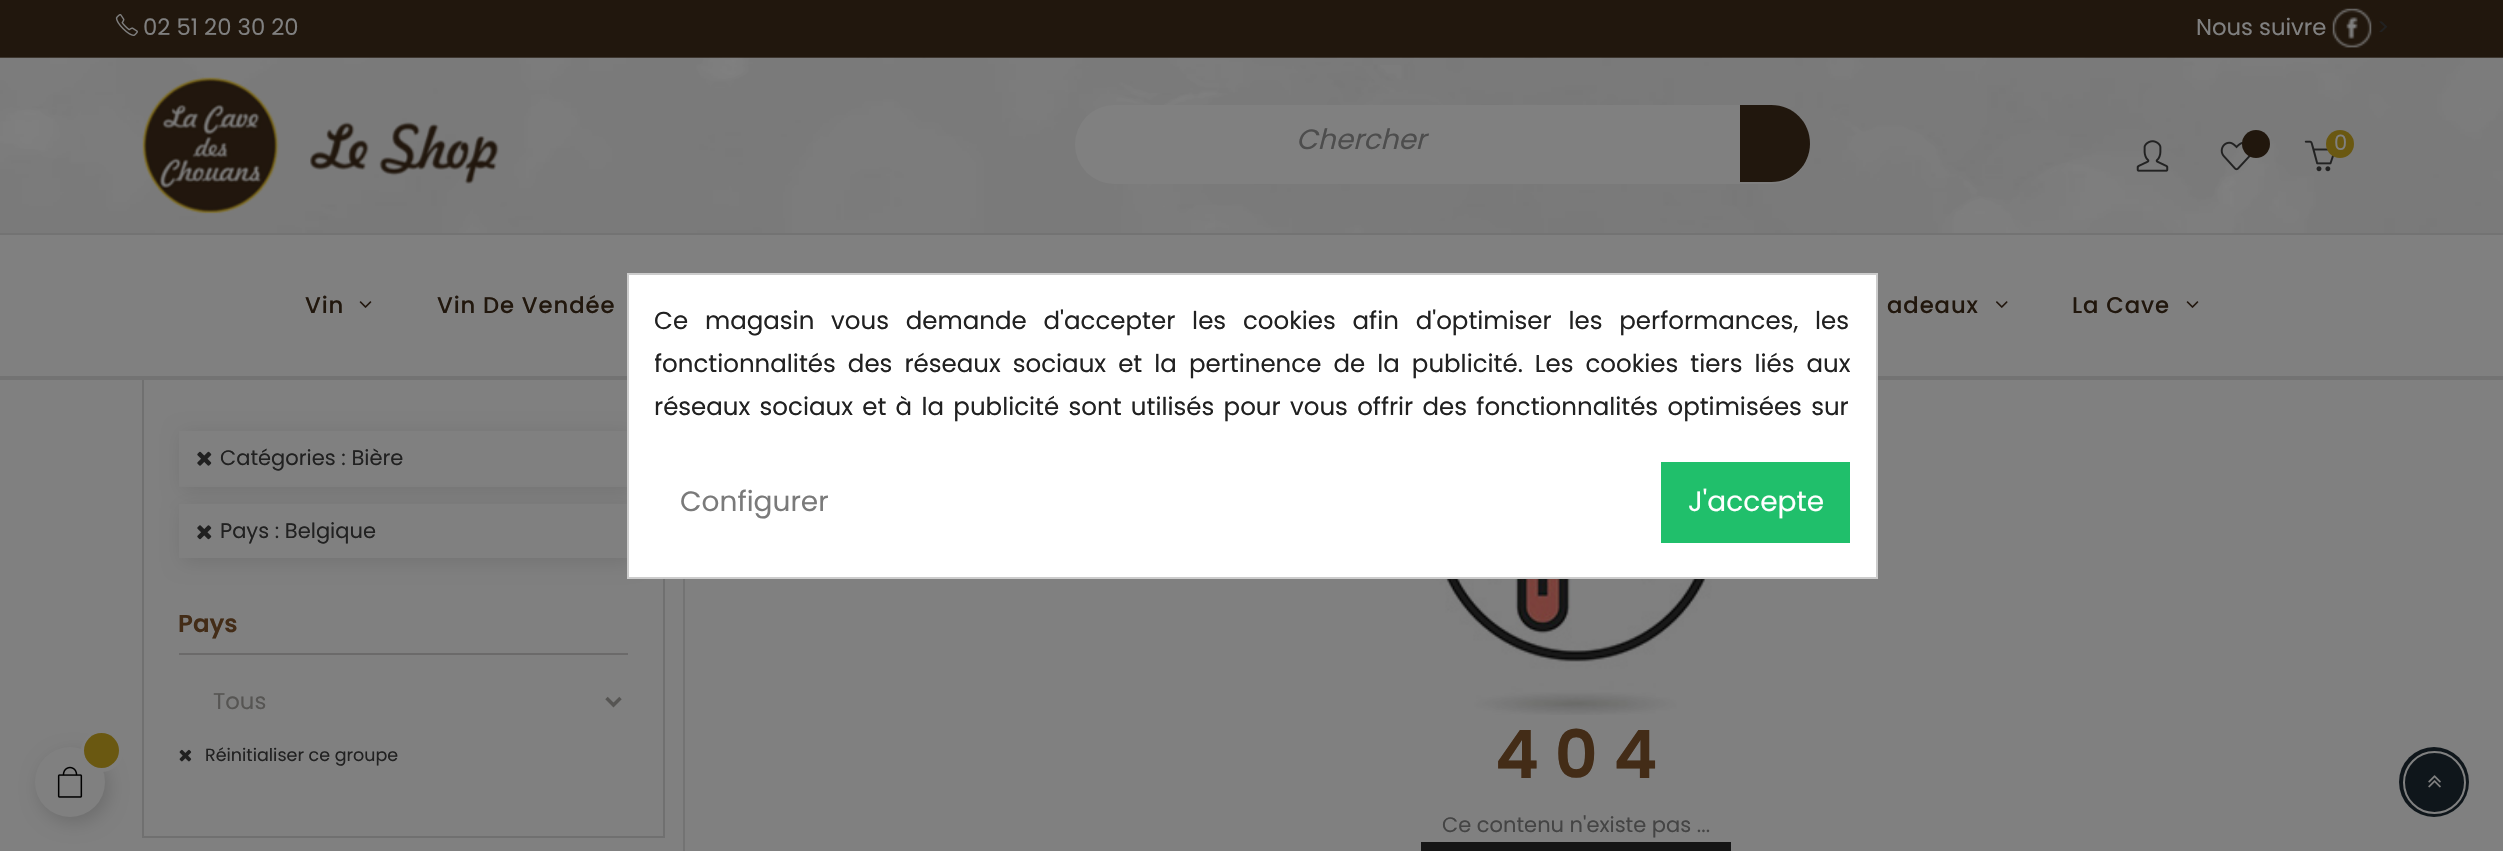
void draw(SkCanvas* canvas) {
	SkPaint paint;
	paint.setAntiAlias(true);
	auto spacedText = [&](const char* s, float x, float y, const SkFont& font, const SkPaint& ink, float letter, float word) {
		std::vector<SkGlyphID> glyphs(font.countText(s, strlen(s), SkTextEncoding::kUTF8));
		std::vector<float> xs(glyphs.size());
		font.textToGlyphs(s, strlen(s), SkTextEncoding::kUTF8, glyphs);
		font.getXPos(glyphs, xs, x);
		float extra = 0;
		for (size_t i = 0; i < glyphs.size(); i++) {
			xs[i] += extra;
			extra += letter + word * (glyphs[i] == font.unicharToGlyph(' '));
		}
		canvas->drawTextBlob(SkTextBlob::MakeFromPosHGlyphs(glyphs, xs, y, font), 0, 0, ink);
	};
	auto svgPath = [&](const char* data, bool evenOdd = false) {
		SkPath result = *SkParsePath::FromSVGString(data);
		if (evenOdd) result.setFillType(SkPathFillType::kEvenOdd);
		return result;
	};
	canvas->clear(0xff808080);
	paint.setStroke(true);
	paint.setStrokeWidth(2);
	paint.setColor(0xff707070);
	canvas->drawRect(SkRect::MakeXYWH(143, 250, 521, 587), paint);
	paint.setStroke(false);
	paint.setColor(0xff808080);
	canvas->drawRect(SkRect::MakeXYWH(142, 249, 523, 127), paint);
	paint.setColor(0xff21170d);
	canvas->drawRect(SkRect::MakeXYWH(0, 0, 2503, 58), paint);
	canvas->drawImageRect(SkImages::DeferredFromEncodedData(SkData::MakeFromFileName("img1.png")), SkRect::MakeXYWH(115, 14, 23, 22), SkSamplingOptions());
	SkFont f1(fontMgr->matchFamilyStyle("Poppins", SkFontStyle::Normal()), 22.75);
	f1.setSubpixel(true);
	paint.setColor(0xff808080);
	canvas->drawString("02 51 20 30 20", 143, 35, f1, paint);
	canvas->drawString("Nous suivre", 2196, 35, f1, paint);
	canvas->drawImageRect(SkImages::DeferredFromEncodedData(SkData::MakeFromFileName("img2.png")), SkRect::MakeXYWH(2332, 8, 40, 40), SkSamplingOptions());
	paint.setColor(0xff212121);
	canvas->drawString(">", 2377, 35, f1, paint);
	canvas->drawImageRect(SkImages::DeferredFromEncodedData(SkData::MakeFromFileName("img3.png")), SkRect::MakeXYWH(0, 57, 2503, 176), SkSamplingOptions());
	canvas->drawImageRect(SkImages::DeferredFromEncodedData(SkData::MakeFromFileName("img4.png")), SkRect::MakeXYWH(142, 77, 357, 137), SkSamplingOptions());
	paint.setColor(0xff808080);
	canvas->drawRoundRect(SkRect::MakeXYWH(1075, 105, 735, 79), 39.5, 39.5, paint);
	SkFont f2(fontMgr->matchFamilyStyle("Poppins", SkFontStyle::Italic()), 28);
	f2.setSubpixel(true);
	paint.setColor(0xff4d4d4d);
	canvas->drawString("Chercher", 1296, 149, f2, paint);
	paint.setColor(0xff21170d);
	canvas->drawPath(svgPath("M1740 105H1771.5C1793 105 1810 122 1810 143.5C1810 165 1793 182 1771.5 182H1740Z"), paint);
	canvas->drawImageRect(SkImages::DeferredFromEncodedData(SkData::MakeFromFileName("img5.png")), SkRect::MakeXYWH(2136, 140, 33, 32), SkSamplingOptions());
	canvas->drawImageRect(SkImages::DeferredFromEncodedData(SkData::MakeFromFileName("img6.png")), SkRect::MakeXYWH(2220, 141, 31, 30), SkSamplingOptions());
	canvas->drawCircle(2256, 144, 14, paint);
	canvas->drawImageRect(SkImages::DeferredFromEncodedData(SkData::MakeFromFileName("img7.png")), SkRect::MakeXYWH(2304, 140, 30, 32), SkSamplingOptions());
	paint.setColor(0xff6a5811);
	canvas->drawCircle(2340, 144, 14, paint);
	SkFont f3(fontMgr->matchFamilyStyle("Poppins", SkFontStyle::Normal()), 21);
	f3.setSubpixel(true);
	paint.setColor(0xff808080);
	canvas->drawString("0", 2334, 150, f3, paint);
	paint.setColor(0xff737373);
	canvas->drawRect(SkRect::MakeXYWH(0, 233, 2503, 2), paint);
	canvas->drawRect(SkRect::MakeXYWH(0, 376, 2503, 4), paint);
	SkFont f4(fontMgr->matchFamilyStyle("Poppins", SkFontStyle(500, SkFontStyle::kNormal_Width, SkFontStyle::kUpright_Slant)), 22.75);
	f4.setSubpixel(true);
	paint.setColor(0xff21170d);
	spacedText("Vin", 305, 313, f4, paint, 0.9, 0);
	canvas->drawImageRect(SkImages::DeferredFromEncodedData(SkData::MakeFromFileName("img8.png")), SkRect::MakeXYWH(359, 301, 13, 7), SkSamplingOptions());
	spacedText("Vin De Vendée", 437, 313, f4, paint, 0.9, 0);
	spacedText("adeaux", 1887, 313, f4, paint, 0.9, 0);
	canvas->drawImageRect(SkImages::DeferredFromEncodedData(SkData::MakeFromFileName("img9.png")), SkRect::MakeXYWH(1996, 301, 12, 7), SkSamplingOptions());
	spacedText("La Cave", 2072, 313, f4, paint, 0.9, 0);
	canvas->drawImageRect(SkImages::DeferredFromEncodedData(SkData::MakeFromFileName("img8.png")), SkRect::MakeXYWH(2186, 301, 13, 7), SkSamplingOptions());
	paint.setColor(0xff737373);
	canvas->drawRect(SkRect::MakeXYWH(683, 579, 2, 272), paint);
	paint.setColor(0x1a000000);
	paint.setMaskFilter(SkMaskFilter::MakeBlur(kNormal_SkBlurStyle, 9.5));
	canvas->drawRect(SkRect::MakeXYWH(182, 434, 450, 56), paint);
	paint.setMaskFilter(nullptr);
	paint.setColor(0xff808080);
	canvas->drawRect(SkRect::MakeXYWH(179, 431, 448, 56), paint);
	canvas->drawImageRect(SkImages::DeferredFromEncodedData(SkData::MakeFromFileName("img10.png")), SkRect::MakeXYWH(197, 451, 15, 15), SkSamplingOptions());
	paint.setColor(0xff212121);
	canvas->drawString("Catégories : Bière", 220, 465, f3, paint);
	paint.setColor(0x1a000000);
	paint.setMaskFilter(SkMaskFilter::MakeBlur(kNormal_SkBlurStyle, 9.5));
	canvas->drawRect(SkRect::MakeXYWH(182, 508, 450, 54), paint);
	paint.setMaskFilter(nullptr);
	paint.setColor(0xff808080);
	canvas->drawRect(SkRect::MakeXYWH(179, 504, 448, 54), paint);
	canvas->drawImageRect(SkImages::DeferredFromEncodedData(SkData::MakeFromFileName("img11.png")), SkRect::MakeXYWH(197, 525, 15, 15), SkSamplingOptions());
	paint.setColor(0xff212121);
	canvas->drawString("Pays : Belgique", 220, 538, f3, paint);
	paint.setColor(0xff6b6a6a);
	canvas->drawRect(SkRect::MakeXYWH(179, 653, 449, 2), paint);
	SkFont f5(fontMgr->matchFamilyStyle("Poppins", SkFontStyle(600, SkFontStyle::kNormal_Width, SkFontStyle::kUpright_Slant)), 24.5);
	f5.setSubpixel(true);
	paint.setColor(0xff432c17);
	canvas->drawString("Pays", 178, 632, f5, paint);
	paint.setStroke(true);
	paint.setStrokeWidth(3.5);
	paint.setColor(0xff565553);
	canvas->drawPath(svgPath("M606.5 698L613.5 705L620.5 698"), paint);
	paint.setStroke(false);
	canvas->drawString("Tous", 213, 709, f1, paint);
	canvas->drawImageRect(SkImages::DeferredFromEncodedData(SkData::MakeFromFileName("img12.png")), SkRect::MakeXYWH(179, 749, 13, 13), SkSamplingOptions());
	SkFont f6(fontMgr->matchFamilyStyle("Poppins", SkFontStyle::Normal()), 17.5);
	f6.setSubpixel(true);
	paint.setColor(0xff212121);
	canvas->drawString("Réinitialiser ce groupe", 205, 761, f6, paint);
	canvas->drawImageRect(SkImages::DeferredFromEncodedData(SkData::MakeFromFileName("img13.png")), SkRect::MakeXYWH(1432, 579, 287, 136), SkSamplingOptions());
	SkFont f7(fontMgr->matchFamilyStyle("Poppins", SkFontStyle(600, SkFontStyle::kNormal_Width, SkFontStyle::kUpright_Slant)), 66.5);
	f7.setSubpixel(true);
	paint.setColor(0xff432c17);
	canvas->drawString("4 0 4", 1495, 778, f7, paint);
	paint.setColor(0xff444444);
	canvas->drawString("Ce contenu n'existe pas ...", 1442, 832, f3, paint);
	paint.setColor(0xff151515);
	canvas->drawRect(SkRect::MakeXYWH(1421, 842, 310, 9), paint);
	paint.setColor(0xff0f161b);
	canvas->drawCircle(2434, 782, 35, paint);
	paint.setStroke(true);
	paint.setStrokeWidth(2);
	paint.setColor(0xff808080);
	canvas->drawCircle(2434.5, 782.5, 30.5, paint);
	canvas->drawImageRect(SkImages::DeferredFromEncodedData(SkData::MakeFromFileName("img14.png")), SkRect::MakeXYWH(2428, 775, 13, 13), SkSamplingOptions());
	paint.setStroke(false);
	paint.setColor(0xffffffff);
	canvas->drawRect(SkRect::MakeXYWH(628, 274, 1249, 304), paint);
	paint.setStroke(true);
	paint.setColor(0xffcccccc);
	canvas->drawRect(SkRect::MakeXYWH(628, 274, 1249, 304), paint);
	SkFont f8(fontMgr->matchFamilyStyle("Poppins", SkFontStyle::Normal()), 24.5);
	f8.setSubpixel(true);
	paint.setStroke(false);
	paint.setColor(0xff212121);
	spacedText("Ce magasin vous demande d'accepter les cookies afin d'optimiser les performances, les", 654, 329, f8, paint, 0, 10.25);
	canvas->save();
	canvas->clipRect(SkRect::MakeXYWH(655, 299, 1195, 128));
	spacedText("fonctionnalités des réseaux sociaux et la pertinence de la publicité. Les cookies tiers liés aux", 654, 372, f8, paint, 0, 5.5);
	canvas->restore();
	spacedText("réseaux sociaux et à la publicité sont utilisés pour vous offrir des fonctionnalités optimisées sur", 654, 415, f8, paint, 0, 2.75);
	SkFont f9(fontMgr->matchFamilyStyle("Poppins", SkFontStyle::Normal()), 28);
	f9.setSubpixel(true);
	paint.setColor(0xff7a7a7a);
	canvas->drawString("Configurer", 680, 511, f9, paint);
	paint.setColor(0xff20bf6b);
	canvas->drawRect(SkRect::MakeXYWH(1661, 462, 189, 81), paint);
	paint.setColor(0xffffffff);
	canvas->drawString("J'accepte", 1688, 511, f9, paint);
	paint.setColor(0x26000000);
	paint.setMaskFilter(SkMaskFilter::MakeBlur(kNormal_SkBlurStyle, 9));
	canvas->drawRoundRect(SkRect::MakeXYWH(39, 753, 70, 70), 35, 35, paint);
	paint.setMaskFilter(nullptr);
	paint.setColor(0xff808080);
	canvas->drawCircle(70, 782, 35, paint);
	canvas->drawImageRect(SkImages::DeferredFromEncodedData(SkData::MakeFromFileName("img15.png")), SkRect::MakeXYWH(57, 766, 26, 32), SkSamplingOptions());
	paint.setStroke(true);
	paint.setStrokeWidth(4);
	canvas->drawCircle(102, 751, 19, paint);
	paint.setStroke(false);
	paint.setColor(0xff6a5811);
	canvas->drawCircle(101.5, 750.5, 17.5, paint);
}
